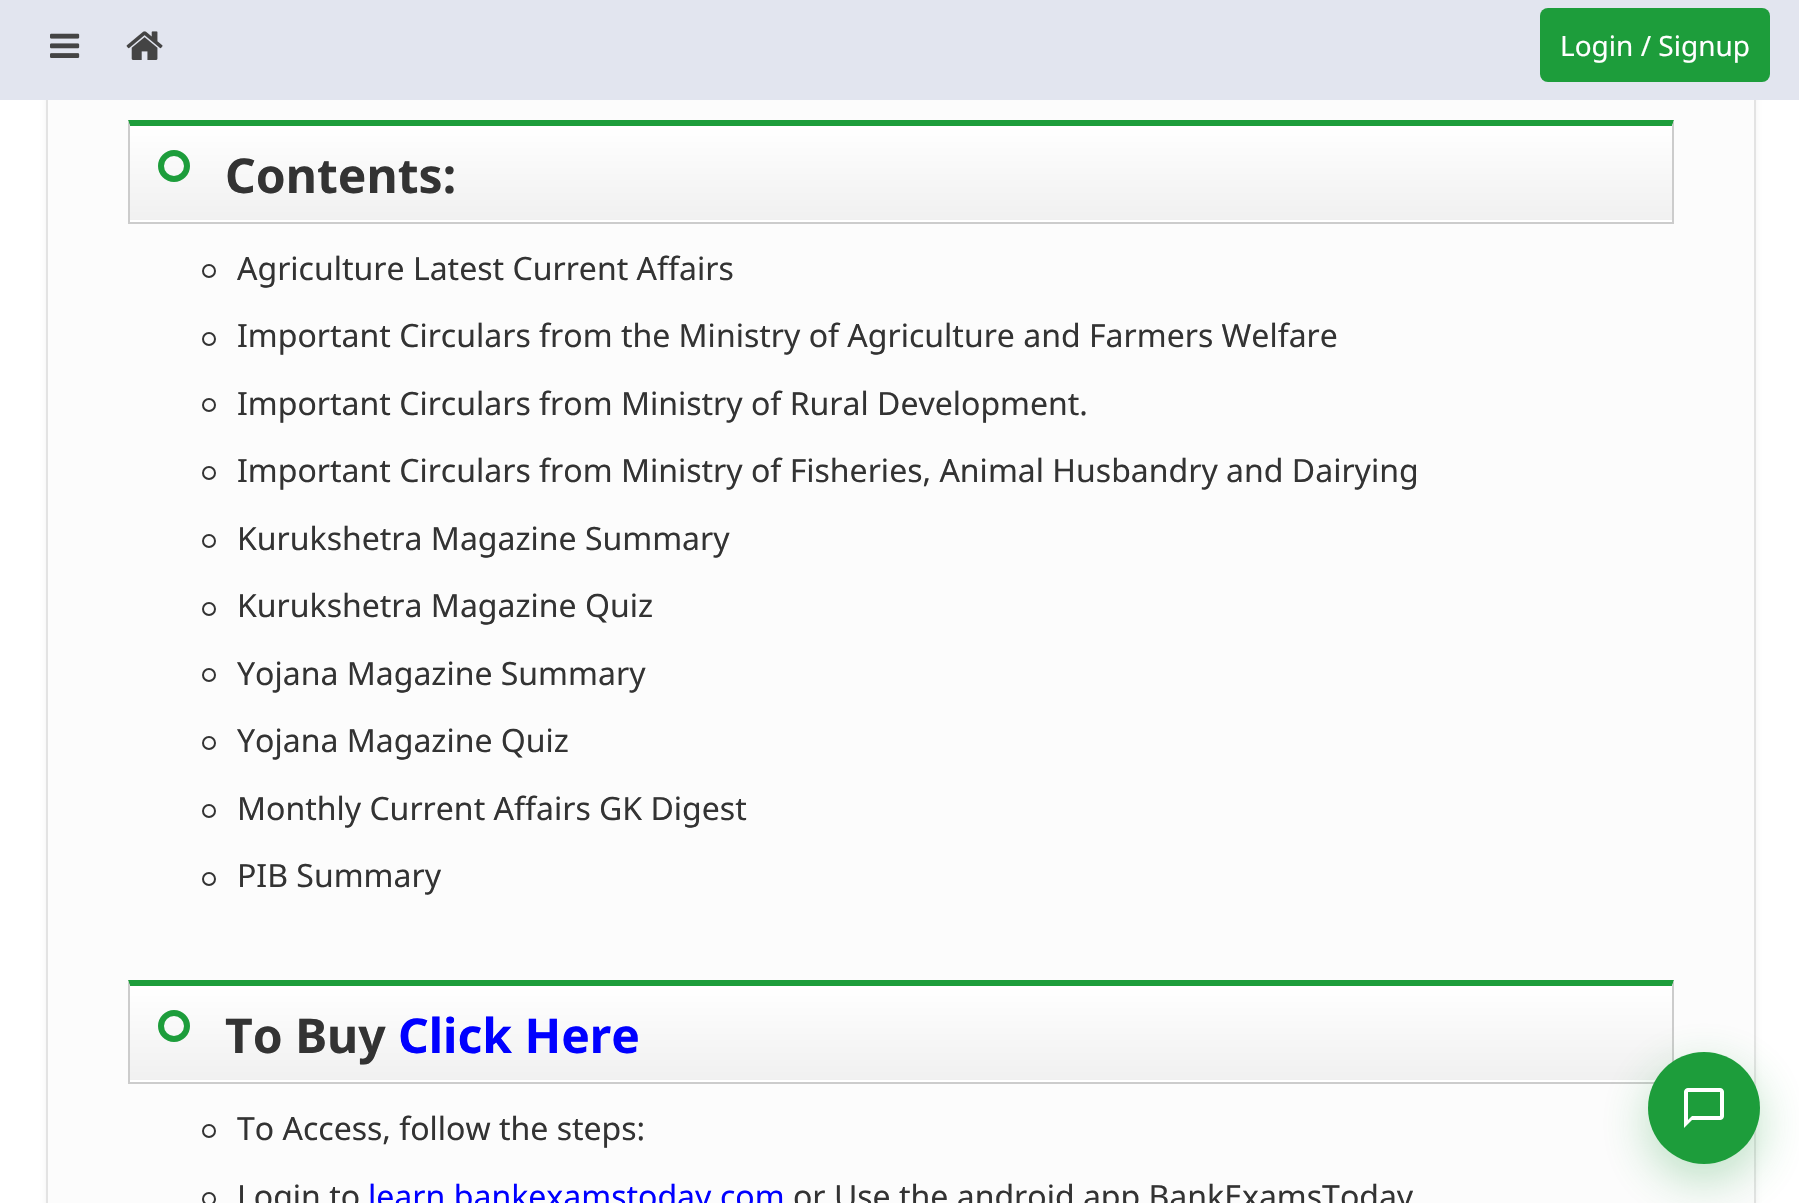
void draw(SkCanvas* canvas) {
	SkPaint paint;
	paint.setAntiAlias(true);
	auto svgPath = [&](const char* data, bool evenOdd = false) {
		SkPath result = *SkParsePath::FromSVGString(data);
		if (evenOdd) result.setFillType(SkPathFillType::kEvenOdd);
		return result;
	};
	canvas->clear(0xffffffff);
	paint.setColor(0x1a000000);
	paint.setMaskFilter(SkMaskFilter::MakeBlur(kNormal_SkBlurStyle, 3));
	canvas->drawRoundRect(SkRect::MakeXYWH(48, -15, 1706, 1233), 6, 6, paint);
	paint.setMaskFilter(nullptr);
	paint.setColor(0xfffcfcfc);
	canvas->drawRect(SkRect::MakeXYWH(48, 100, 1706, 1103), paint);
	paint.setStroke(true);
	paint.setStrokeWidth(2);
	paint.setColor(0xffe3e3e3);
	canvas->drawRect(SkRect::MakeXYWH(47, -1, 1708, 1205), paint);
	paint.setStroke(false);
	paint.setColor(0xffe2e5ef);
	canvas->drawRect(SkRect::MakeXYWH(0, 0, 1799, 100), paint);
	canvas->drawImageRect(SkImages::DeferredFromEncodedData(SkData::MakeFromFileName("img1.png")), SkRect::MakeXYWH(50, 33, 30, 25), SkSamplingOptions());
	canvas->drawImageRect(SkImages::DeferredFromEncodedData(SkData::MakeFromFileName("img2.png")), SkRect::MakeXYWH(126, 31, 37, 29), SkSamplingOptions());
	paint.setColor(0xff1d9d3b);
	canvas->drawRoundRect(SkRect::MakeXYWH(1540, 8, 230, 74), 8, 8, paint);
	SkFont f1(fontMgr->matchFamilyStyle("Noto Sans", SkFontStyle::Normal()), 28);
	f1.setSubpixel(true);
	paint.setColor(0xffffffff);
	canvas->drawString("Login / Signup", 1560, 56, f1, paint);
	{
		const SkColor colors[] = {0xffffffff, 0xfff0f0f0};
		const float stops[] = {0, 1};
		const SkPoint ends[] = {{901, 126}, {901, 222}};
		paint.setShader(SkGradientShader::MakeLinear(ends, colors, stops, 2, SkTileMode::kClamp));
		paint.setAlpha(255);
	}
	canvas->drawRect(SkRect::MakeXYWH(130, 126, 1542, 94), paint);
	paint.setShader(nullptr);
	paint.setColor(0xffffffff);
	canvas->drawRect(SkRect::MakeXYWH(130, 220, 1542, 2), paint);
	paint.setColor(0xff1d9d3b);
	canvas->drawPath(svgPath("M128 120H1674L1672 126H130Z"), paint);
	paint.setColor(0xffcccccc);
	canvas->drawPath(svgPath("M1674 120V224L1672 222V126Z"), paint);
	canvas->drawRect(SkRect::MakeXYWH(128, 222, 1546, 2), paint);
	canvas->drawPath(svgPath("M128 224V120L130 126V222Z"), paint);
	paint.setStroke(true);
	paint.setStrokeWidth(6);
	paint.setColor(0xff1d9d3b);
	canvas->drawCircle(174, 166, 13, paint);
	SkFont f2(fontMgr->matchFamilyStyle("Noto Sans", SkFontStyle::Bold()), 48);
	f2.setSubpixel(true);
	paint.setStroke(false);
	paint.setColor(0xff333333);
	canvas->drawString("Contents:", 225, 193, f2, paint);
	paint.setStroke(true);
	paint.setStrokeWidth(2);
	canvas->drawCircle(209, 271, 6, paint);
	SkFont f3(fontMgr->matchFamilyStyle("Noto Sans", SkFontStyle::Normal()), 32);
	f3.setSubpixel(true);
	paint.setStroke(false);
	canvas->drawString("Agriculture Latest Current Affairs", 237, 280, f3, paint);
	paint.setStroke(true);
	canvas->drawCircle(209, 339, 6, paint);
	paint.setStroke(false);
	canvas->drawString("Important Circulars from the Ministry of Agriculture and Farmers Welfare", 237, 347, f3, paint);
	paint.setStroke(true);
	canvas->drawCircle(209, 405, 6, paint);
	paint.setStroke(false);
	canvas->drawString("Important Circulars from Ministry of Rural Development.", 237, 415, f3, paint);
	paint.setStroke(true);
	canvas->drawCircle(209, 473, 6, paint);
	paint.setStroke(false);
	canvas->drawString("Important Circulars from Ministry of Fisheries, Animal Husbandry and Dairying", 237, 482, f3, paint);
	paint.setStroke(true);
	canvas->drawCircle(209, 541, 6, paint);
	paint.setStroke(false);
	canvas->drawString("Kurukshetra Magazine Summary", 237, 550, f3, paint);
	paint.setStroke(true);
	canvas->drawCircle(209, 609, 6, paint);
	paint.setStroke(false);
	canvas->drawString("Kurukshetra Magazine Quiz", 237, 617, f3, paint);
	paint.setStroke(true);
	canvas->drawCircle(209, 675, 6, paint);
	paint.setStroke(false);
	canvas->drawString("Yojana Magazine Summary", 237, 685, f3, paint);
	paint.setStroke(true);
	canvas->drawCircle(209, 743, 6, paint);
	paint.setStroke(false);
	canvas->drawString("Yojana Magazine Quiz", 237, 752, f3, paint);
	paint.setStroke(true);
	canvas->drawCircle(209, 811, 6, paint);
	paint.setStroke(false);
	canvas->drawString("Monthly Current Affairs GK Digest", 237, 820, f3, paint);
	paint.setStroke(true);
	canvas->drawCircle(209, 879, 6, paint);
	paint.setStroke(false);
	canvas->drawString("PIB Summary", 237, 887, f3, paint);
	{
		const SkColor colors[] = {0xffffffff, 0xfff0f0f0};
		const float stops[] = {0, 1};
		const SkPoint ends[] = {{901, 986}, {901, 1082}};
		paint.setShader(SkGradientShader::MakeLinear(ends, colors, stops, 2, SkTileMode::kClamp));
		paint.setAlpha(255);
	}
	canvas->drawRect(SkRect::MakeXYWH(130, 986, 1542, 94), paint);
	paint.setShader(nullptr);
	paint.setColor(0xffffffff);
	canvas->drawRect(SkRect::MakeXYWH(130, 1080, 1526, 2), paint);
	paint.setColor(0xff1d9d3b);
	canvas->drawPath(svgPath("M128 980H1674L1672 986H130Z"), paint);
	paint.setColor(0xffcccccc);
	canvas->drawPath(svgPath("M1674 980V1084L1672 1082V986Z"), paint);
	canvas->drawRect(SkRect::MakeXYWH(128, 1082, 1527, 2), paint);
	canvas->drawPath(svgPath("M128 1084V980L130 986V1082Z"), paint);
	paint.setStroke(true);
	paint.setStrokeWidth(6);
	paint.setColor(0xff1d9d3b);
	canvas->drawCircle(174, 1026, 13, paint);
	paint.setStroke(false);
	paint.setColor(0xff333333);
	canvas->drawString("To Buy", 225, 1053, f2, paint);
	paint.setColor(0xff0000ff);
	canvas->drawString("Click Here", 398, 1053, f2, paint);
	paint.setStroke(true);
	paint.setStrokeWidth(2);
	paint.setColor(0xff333333);
	canvas->drawCircle(209, 1131, 6, paint);
	paint.setStroke(false);
	canvas->drawString("To Access, follow the steps:", 237, 1140, f3, paint);
	paint.setStroke(true);
	canvas->drawCircle(209, 1199, 6, paint);
	paint.setStroke(false);
	canvas->drawString("Login to", 237, 1208, f3, paint);
	paint.setColor(0xff0000ff);
	canvas->drawString("learn.bankexamstoday.com", 368, 1208, f3, paint);
	paint.setColor(0xff333333);
	canvas->drawString("or Use the android app BankExamsToday", 793, 1208, f3, paint);
	paint.setColor(0x4d1d9d3b);
	paint.setMaskFilter(SkMaskFilter::MakeBlur(kNormal_SkBlurStyle, 24));
	canvas->drawRoundRect(SkRect::MakeXYWH(1648, 1068, 112, 112), 56, 56, paint);
	paint.setMaskFilter(nullptr);
	paint.setColor(0xff1d9d3b);
	canvas->drawCircle(1704, 1108, 56, paint);
	canvas->drawImageRect(SkImages::DeferredFromEncodedData(SkData::MakeFromFileName("img3.png")), SkRect::MakeXYWH(1684, 1088, 40, 40), SkSamplingOptions());
}
